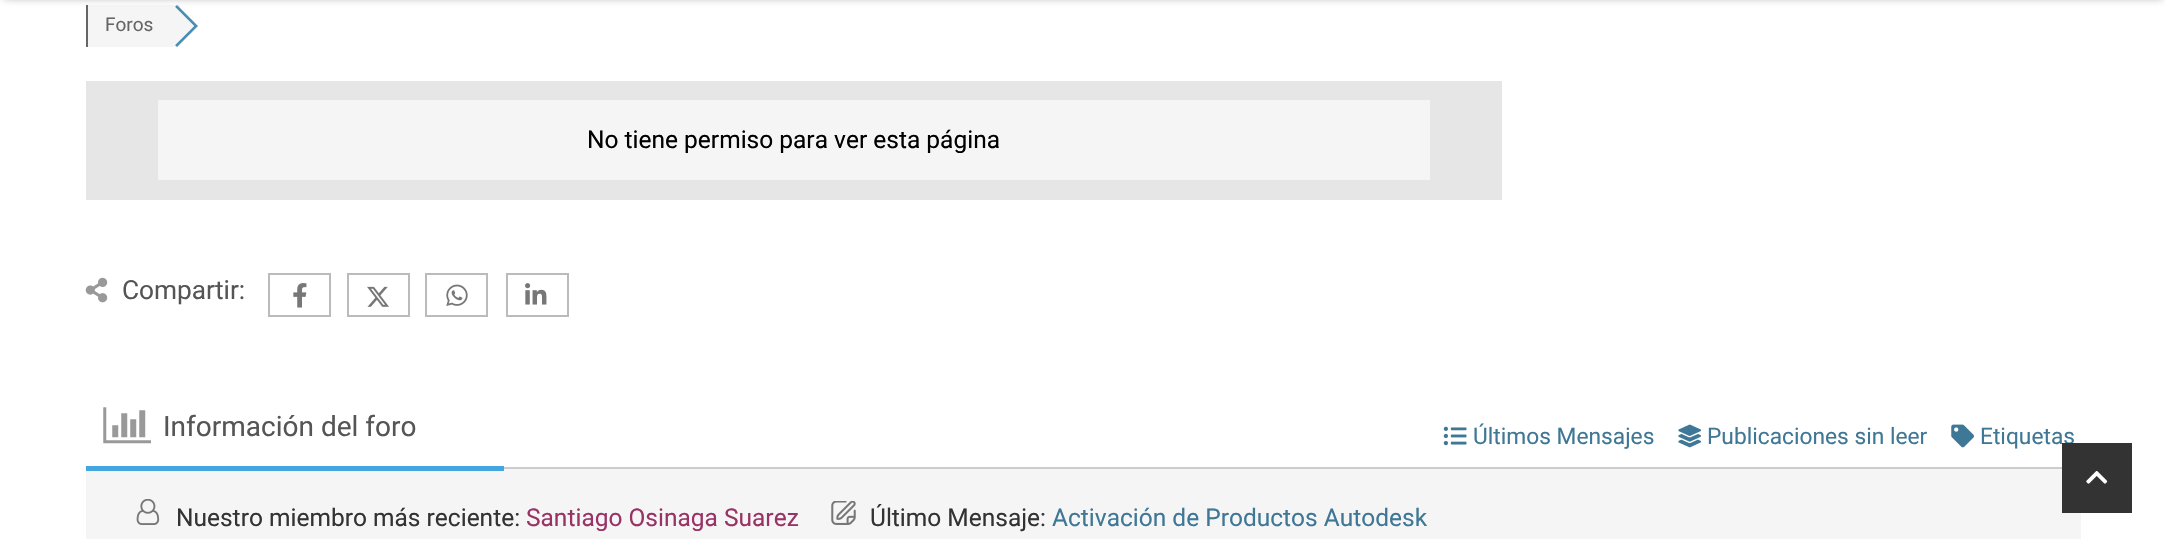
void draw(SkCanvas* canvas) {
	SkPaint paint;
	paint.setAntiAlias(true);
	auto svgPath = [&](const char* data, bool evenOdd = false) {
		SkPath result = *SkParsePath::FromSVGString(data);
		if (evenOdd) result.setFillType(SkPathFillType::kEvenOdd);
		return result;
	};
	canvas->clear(0xffffffff);
	paint.setColor(0xfff5f5f5);
	canvas->drawRect(SkRect::MakeXYWH(88, 5, 92, 42), paint);
	paint.setColor(0xff666666);
	canvas->drawRect(SkRect::MakeXYWH(86, 5, 2, 42), paint);
	paint.setColor(0xff4a8eb3);
	canvas->drawPath(svgPath("M177 5L175 7L194 26L175 45L177 47L198 26Z"), paint);
	SkFont f1(fontMgr->matchFamilyStyle("Roboto", SkFontStyle::Normal()), 19);
	f1.setSubpixel(true);
	paint.setColor(0xff666666);
	canvas->drawString("Foros", 105, 31, f1, paint);
	paint.setColor(0xfff5f5f5);
	canvas->drawPath(svgPath("M173 5L194 26L173 47L153 26Z"), paint);
	paint.setColor(0x662a2a2a);
	paint.setMaskFilter(SkMaskFilter::MakeBlur(kNormal_SkBlurStyle, 4.5));
	canvas->drawRect(SkRect::MakeXYWH(4, -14, 2159, 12), paint);
	paint.setMaskFilter(nullptr);
	paint.setColor(0xffe6e6e6);
	canvas->drawRect(SkRect::MakeXYWH(86, 81, 1416, 119), paint);
	paint.setColor(0xfff5f5f5);
	canvas->drawRect(SkRect::MakeXYWH(158, 100, 1272, 80), paint);
	SkFont f2(fontMgr->matchFamilyStyle("Roboto", SkFontStyle::Normal()), 24.5);
	f2.setSubpixel(true);
	paint.setColor(0xff000000);
	canvas->drawString("No tiene permiso para ver esta página", 587, 148, f2, paint);
	canvas->drawImageRect(SkImages::DeferredFromEncodedData(SkData::MakeFromFileName("img1.png")), SkRect::MakeXYWH(85, 277, 23, 26), SkSamplingOptions());
	SkFont f3(fontMgr->matchFamilyStyle("Roboto", SkFontStyle::Normal()), 26.25);
	f3.setSubpixel(true);
	paint.setColor(0xff555555);
	canvas->drawString("Compartir:", 122, 299, f3, paint);
	paint.setStroke(true);
	paint.setStrokeWidth(2);
	paint.setColor(0xffbbbbbb);
	canvas->drawRect(SkRect::MakeXYWH(269, 274, 61, 42), paint);
	canvas->drawImageRect(SkImages::DeferredFromEncodedData(SkData::MakeFromFileName("img2.png")), SkRect::MakeXYWH(293, 283, 14, 25), SkSamplingOptions());
	canvas->drawRect(SkRect::MakeXYWH(348, 274, 61, 42), paint);
	canvas->drawImageRect(SkImages::DeferredFromEncodedData(SkData::MakeFromFileName("img3.png")), SkRect::MakeXYWH(367, 286, 22, 21), SkSamplingOptions());
	canvas->drawRect(SkRect::MakeXYWH(426, 274, 61, 42), paint);
	canvas->drawImageRect(SkImages::DeferredFromEncodedData(SkData::MakeFromFileName("img4.png")), SkRect::MakeXYWH(446, 284, 22, 22), SkSamplingOptions());
	canvas->drawRect(SkRect::MakeXYWH(507, 274, 61, 42), paint);
	canvas->drawImageRect(SkImages::DeferredFromEncodedData(SkData::MakeFromFileName("img5.png")), SkRect::MakeXYWH(525, 283, 22, 22), SkSamplingOptions());
	paint.setStroke(false);
	paint.setColor(0xffcccccc);
	canvas->drawRect(SkRect::MakeXYWH(504, 467, 1558, 2), paint);
	paint.setColor(0xfff5f5f5);
	canvas->drawRect(SkRect::MakeXYWH(86, 469, 1995, 70), paint);
	paint.setColor(0xff43a6df);
	canvas->drawRect(SkRect::MakeXYWH(86, 466, 418, 5), paint);
	canvas->drawImageRect(SkImages::DeferredFromEncodedData(SkData::MakeFromFileName("img6.png")), SkRect::MakeXYWH(103, 407, 48, 37), SkSamplingOptions());
	SkFont f4(fontMgr->matchFamilyStyle("Roboto", SkFontStyle::Normal()), 28);
	f4.setSubpixel(true);
	paint.setColor(0xff555555);
	canvas->drawString("Información del foro", 163, 436, f4, paint);
	canvas->drawImageRect(SkImages::DeferredFromEncodedData(SkData::MakeFromFileName("img7.png")), SkRect::MakeXYWH(1443, 426, 24, 20), SkSamplingOptions());
	SkFont f5(fontMgr->matchFamilyStyle("Roboto", SkFontStyle::Normal()), 22.75);
	f5.setSubpixel(true);
	paint.setColor(0xff3f7796);
	canvas->drawString("Últimos Mensajes", 1473, 444, f5, paint);
	canvas->drawImageRect(SkImages::DeferredFromEncodedData(SkData::MakeFromFileName("img8.png")), SkRect::MakeXYWH(1678, 424, 23, 24), SkSamplingOptions());
	canvas->drawString("Publicaciones sin leer", 1707, 444, f5, paint);
	canvas->drawImageRect(SkImages::DeferredFromEncodedData(SkData::MakeFromFileName("img9.png")), SkRect::MakeXYWH(1951, 424, 23, 24), SkSamplingOptions());
	canvas->drawString("Etiquetas", 1980, 444, f5, paint);
	canvas->drawImageRect(SkImages::DeferredFromEncodedData(SkData::MakeFromFileName("img10.png")), SkRect::MakeXYWH(136, 499, 24, 26), SkSamplingOptions());
	paint.setColor(0xff333333);
	canvas->drawString("Nuestro miembro más reciente:", 176, 526, f2, paint);
	paint.setColor(0xff993366);
	canvas->drawString("Santiago Osinaga Suarez", 526, 526, f2, paint);
	canvas->drawImageRect(SkImages::DeferredFromEncodedData(SkData::MakeFromFileName("img11.png")), SkRect::MakeXYWH(831, 501, 25, 24), SkSamplingOptions());
	paint.setColor(0xff333333);
	canvas->drawString("Último Mensaje:", 870, 526, f2, paint);
	paint.setColor(0xff3f7796);
	canvas->drawString("Activación de Productos Autodesk", 1052, 526, f2, paint);
	paint.setColor(0xff333333);
	canvas->drawRect(SkRect::MakeXYWH(2062, 443, 70, 70), paint);
	canvas->drawImageRect(SkImages::DeferredFromEncodedData(SkData::MakeFromFileName("img12.png")), SkRect::MakeXYWH(2086, 471, 22, 13), SkSamplingOptions());
}
